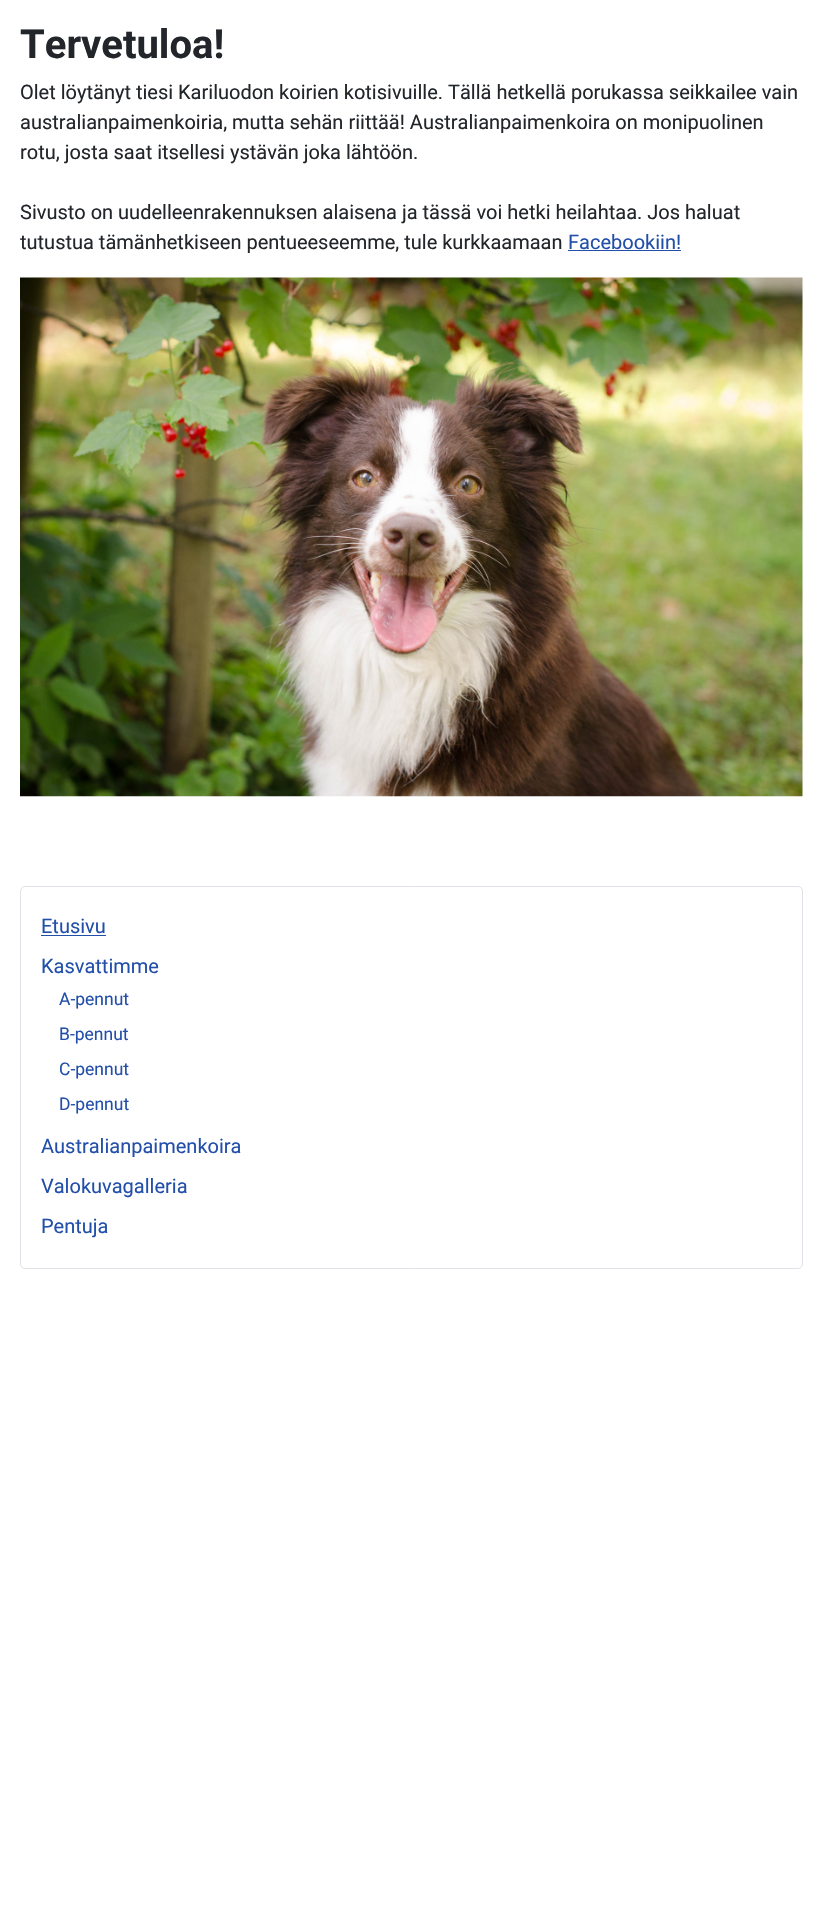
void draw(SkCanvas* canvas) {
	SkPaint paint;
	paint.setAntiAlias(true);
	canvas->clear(0xffffffff);
	SkFont f1(fontMgr->matchFamilyStyle("Roboto", SkFontStyle::Bold()), 40);
	f1.setSubpixel(true);
	paint.setColor(0xff22262a);
	canvas->drawString("Tervetuloa!", 20, 58, f1, paint);
	SkFont f2(fontMgr->matchFamilyStyle("Roboto", SkFontStyle::Normal()), 20);
	f2.setSubpixel(true);
	canvas->drawString("Olet löytänyt tiesi Kariluodon koirien kotisivuille. Tällä hetkellä porukassa seikkailee vain", 20, 99, f2, paint);
	canvas->drawString("australianpaimenkoiria, mutta sehän riittää! Australianpaimenkoira on monipuolinen", 20, 129, f2, paint);
	canvas->drawString("rotu, josta saat itsellesi ystävän joka lähtöön.", 20, 159, f2, paint);
	canvas->drawString("Sivusto on uudelleenrakennuksen alaisena ja tässä voi hetki heilahtaa. Jos haluat", 20, 219, f2, paint);
	canvas->drawString("tutustua tämänhetkiseen pentueeseemme, tule kurkkaamaan", 20, 249, f2, paint);
	paint.setColor(0xff224faa);
	canvas->drawString("Facebookiin!", 568, 249, f2, paint);
	canvas->drawRect(SkRect::MakeXYWH(568, 250, 113, 1), paint);
	canvas->drawImageRect(SkImages::DeferredFromEncodedData(SkData::MakeFromFileName("img1.png")), SkRect::MakeXYWH(20, 277, 783, 520), SkSamplingOptions());
	paint.setStroke(true);
	paint.setStrokeWidth(1);
	paint.setColor(0xffdfe3e7);
	canvas->drawRoundRect(SkRect::MakeXYWH(20.5, 886.5, 782, 382), 4.5, 4.5, paint);
	paint.setStroke(false);
	paint.setColor(0xff224faa);
	canvas->drawString("Etusivu", 41, 933, f2, paint);
	canvas->drawRect(SkRect::MakeXYWH(41, 935, 65, 1), paint);
	canvas->drawString("Kasvattimme", 41, 973, f2, paint);
	SkFont f3(fontMgr->matchFamilyStyle("Roboto", SkFontStyle::Normal()), 17.5);
	f3.setSubpixel(true);
	canvas->drawString("A-pennut", 59, 1005, f3, paint);
	canvas->drawString("B-pennut", 59, 1040, f3, paint);
	canvas->drawString("C-pennut", 59, 1075, f3, paint);
	canvas->drawString("D-pennut", 59, 1110, f3, paint);
	canvas->drawString("Australianpaimenkoira", 41, 1153, f2, paint);
	canvas->drawString("Valokuvagalleria", 41, 1193, f2, paint);
	canvas->drawString("Pentuja", 41, 1233, f2, paint);
}
